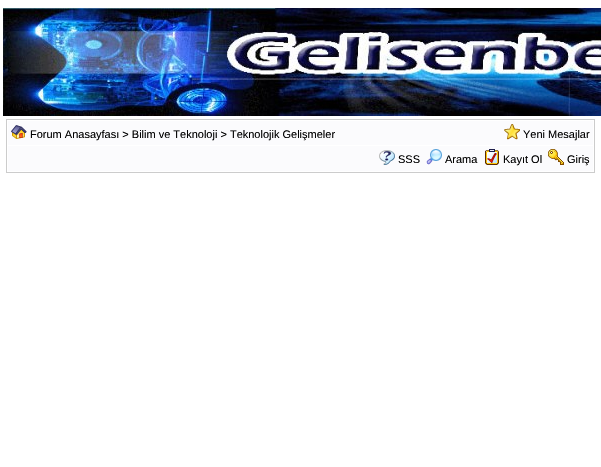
void draw(SkCanvas* canvas) {
	SkPaint paint;
	paint.setAntiAlias(true);
	canvas->clear(0xffffffff);
	canvas->drawImageRect(SkImages::DeferredFromEncodedData(SkData::MakeFromFileName("img1.png")), SkRect::MakeXYWH(3, 8, 598, 108), SkSamplingOptions());
	paint.setStroke(true);
	paint.setStrokeWidth(1);
	paint.setColor(0xffcccccc);
	canvas->drawRect(SkRect::MakeXYWH(6.5, 119.5, 588, 53), paint);
	paint.setStroke(false);
	paint.setColor(0xfffbfbfd);
	canvas->drawRect(SkRect::MakeXYWH(8, 121, 585, 24), paint);
	canvas->drawImageRect(SkImages::DeferredFromEncodedData(SkData::MakeFromFileName("img2.png")), SkRect::MakeXYWH(11, 125, 16, 14), SkSamplingOptions());
	SkFont f1(fontMgr->matchFamilyStyle("Liberation Sans", SkFontStyle::Normal()), 11);
	f1.setSubpixel(true);
	paint.setColor(0xff000000);
	canvas->drawString("Forum Anasayfası > Bilim ve Teknoloji > Teknolojik Gelişmeler", 30, 138, f1, paint);
	canvas->drawImageRect(SkImages::DeferredFromEncodedData(SkData::MakeFromFileName("img3.png")), SkRect::MakeXYWH(504, 124, 16, 16), SkSamplingOptions());
	canvas->drawString("Yeni Mesajlar", 523, 138, f1, paint);
	paint.setColor(0xfffbfbfd);
	canvas->drawRect(SkRect::MakeXYWH(8, 146, 585, 25), paint);
	canvas->drawImageRect(SkImages::DeferredFromEncodedData(SkData::MakeFromFileName("img4.png")), SkRect::MakeXYWH(379, 150, 16, 15), SkSamplingOptions());
	paint.setColor(0xff000000);
	canvas->drawString("SSS", 398, 163, f1, paint);
	canvas->drawImageRect(SkImages::DeferredFromEncodedData(SkData::MakeFromFileName("img5.png")), SkRect::MakeXYWH(426, 149, 16, 16), SkSamplingOptions());
	canvas->drawString("Arama", 445, 163, f1, paint);
	canvas->drawImageRect(SkImages::DeferredFromEncodedData(SkData::MakeFromFileName("img6.png")), SkRect::MakeXYWH(485, 149, 14, 16), SkSamplingOptions());
	canvas->drawString("Kayıt Ol", 503, 163, f1, paint);
	canvas->drawImageRect(SkImages::DeferredFromEncodedData(SkData::MakeFromFileName("img7.png")), SkRect::MakeXYWH(548, 149, 16, 16), SkSamplingOptions());
	canvas->drawString("Giriş", 567, 163, f1, paint);
}
